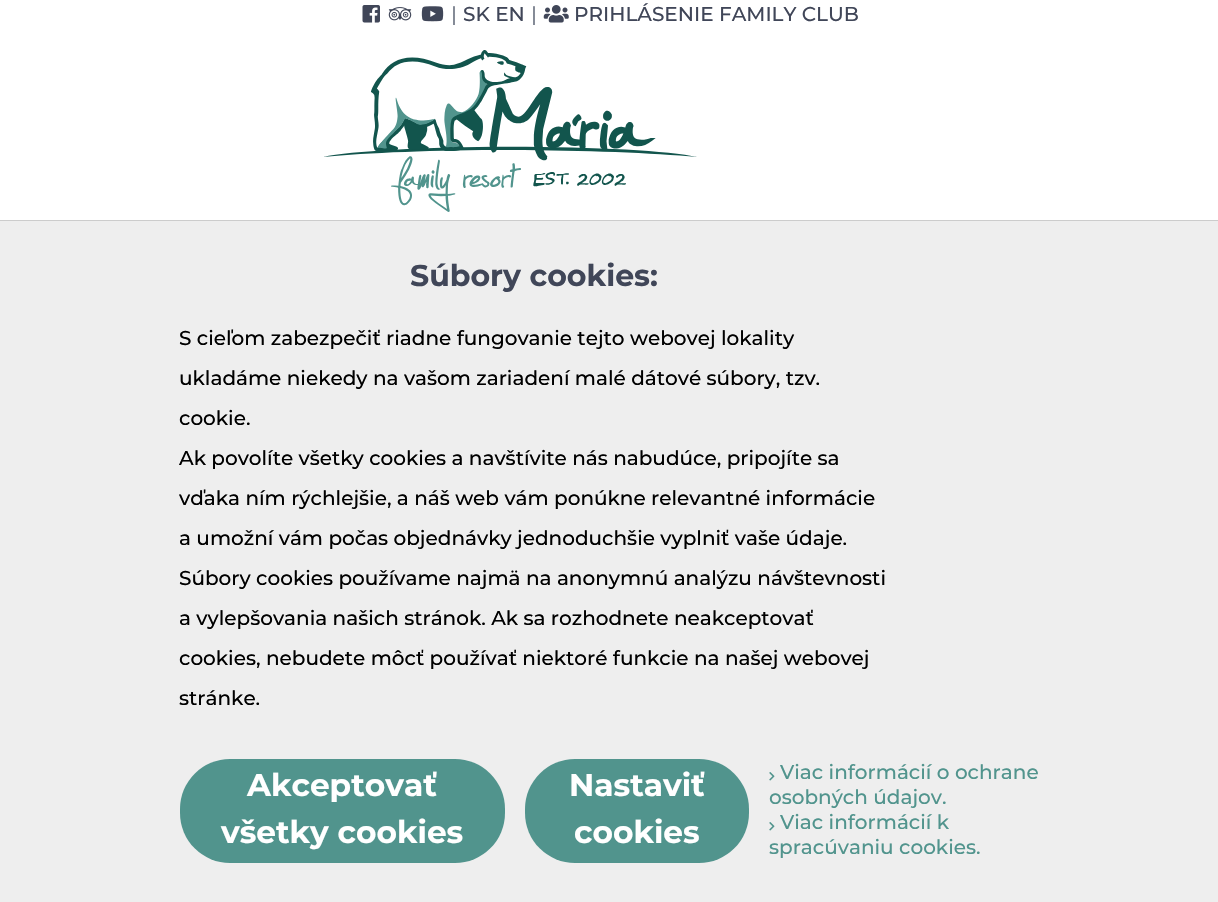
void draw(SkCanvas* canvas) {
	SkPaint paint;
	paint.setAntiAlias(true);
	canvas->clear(0xffffffff);
	canvas->drawImageRect(SkImages::DeferredFromEncodedData(SkData::MakeFromFileName("img1.png")), SkRect::MakeXYWH(362, 5, 18, 18), SkSamplingOptions());
	canvas->drawImageRect(SkImages::DeferredFromEncodedData(SkData::MakeFromFileName("img2.png")), SkRect::MakeXYWH(388, 7, 24, 14), SkSamplingOptions());
	canvas->drawImageRect(SkImages::DeferredFromEncodedData(SkData::MakeFromFileName("img3.png")), SkRect::MakeXYWH(421, 6, 23, 16), SkSamplingOptions());
	SkFont f1(fontMgr->matchFamilyStyle("Montserrat", SkFontStyle(500, SkFontStyle::kNormal_Width, SkFontStyle::kUpright_Slant)), 20);
	f1.setSubpixel(true);
	paint.setColor(0xff7b818e);
	canvas->drawString("|", 451, 21, f1, paint);
	paint.setColor(0xff404658);
	canvas->drawString("SK EN", 463, 21, f1, paint);
	paint.setColor(0xff7b818e);
	canvas->drawString("|", 531, 21, f1, paint);
	canvas->drawImageRect(SkImages::DeferredFromEncodedData(SkData::MakeFromFileName("img4.png")), SkRect::MakeXYWH(543, 5, 26, 18), SkSamplingOptions());
	paint.setColor(0xff404658);
	canvas->drawString("PRIHLÁSENIE FAMILY CLUB", 574, 21, f1, paint);
	canvas->drawImageRect(SkImages::DeferredFromEncodedData(SkData::MakeFromFileName("img5.png")), SkRect::MakeXYWH(324, 50, 373, 162), SkSamplingOptions());
	paint.setColor(0xffeeeeee);
	canvas->drawRect(SkRect::MakeXYWH(0, 221, 1218, 681), paint);
	paint.setColor(0xffcccccc);
	canvas->drawRect(SkRect::MakeXYWH(0, 220, 1218, 1), paint);
	SkFont f2(fontMgr->matchFamilyStyle("Montserrat", SkFontStyle::Bold()), 30);
	f2.setSubpixel(true);
	paint.setColor(0xff404658);
	canvas->drawString("Súbory cookies:", 410, 286, f2, paint);
	paint.setColor(0xff000000);
	canvas->drawString("S cieľom zabezpečiť riadne fungovanie tejto webovej lokality", 179, 345, f1, paint);
	canvas->drawString("ukladáme niekedy na vašom zariadení malé dátové súbory, tzv.", 179, 385, f1, paint);
	canvas->drawString("cookie.", 179, 425, f1, paint);
	canvas->drawString("Ak povolíte všetky cookies a navštívite nás nabudúce, pripojíte sa", 179, 465, f1, paint);
	canvas->drawString("vďaka ním rýchlejšie, a náš web vám ponúkne relevantné informácie", 179, 505, f1, paint);
	canvas->drawString("a umožní vám počas objednávky jednoduchšie vyplniť vaše údaje.", 179, 545, f1, paint);
	canvas->drawString("Súbory cookies používame najmä na anonymnú analýzu návštevnosti", 179, 585, f1, paint);
	canvas->drawString("a vylepšovania našich stránok. Ak sa rozhodnete neakceptovať", 179, 625, f1, paint);
	canvas->drawString("cookies, nebudete môcť používať niektoré funkcie na našej webovej", 179, 665, f1, paint);
	canvas->drawString("stránke.", 179, 705, f1, paint);
	paint.setColor(0xff51948d);
	canvas->drawRoundRect(SkRect::MakeXYWH(180, 759, 325, 104), 50, 50, paint);
	SkFont f3(fontMgr->matchFamilyStyle("Montserrat", SkFontStyle::Bold()), 31.25);
	f3.setSubpixel(true);
	paint.setColor(0xffffffff);
	canvas->drawString("Akceptovať", 247, 796, f3, paint);
	canvas->drawString("všetky cookies", 221, 843, f3, paint);
	paint.setColor(0xff51948d);
	canvas->drawRoundRect(SkRect::MakeXYWH(525, 759, 224, 104), 50, 50, paint);
	paint.setColor(0xffffffff);
	canvas->drawString("Nastaviť", 569, 796, f3, paint);
	canvas->drawString("cookies", 574, 843, f3, paint);
	canvas->drawImageRect(SkImages::DeferredFromEncodedData(SkData::MakeFromFileName("img6.png")), SkRect::MakeXYWH(769, 772, 6, 9), SkSamplingOptions());
	paint.setColor(0xff51948d);
	canvas->drawString("Viac informácií o ochrane", 780, 779, f1, paint);
	canvas->drawString("osobných údajov.", 769, 804, f1, paint);
	canvas->drawImageRect(SkImages::DeferredFromEncodedData(SkData::MakeFromFileName("img6.png")), SkRect::MakeXYWH(769, 822, 6, 9), SkSamplingOptions());
	canvas->drawString("Viac informácií k", 780, 829, f1, paint);
	canvas->drawString("spracúvaniu cookies.", 769, 854, f1, paint);
}
